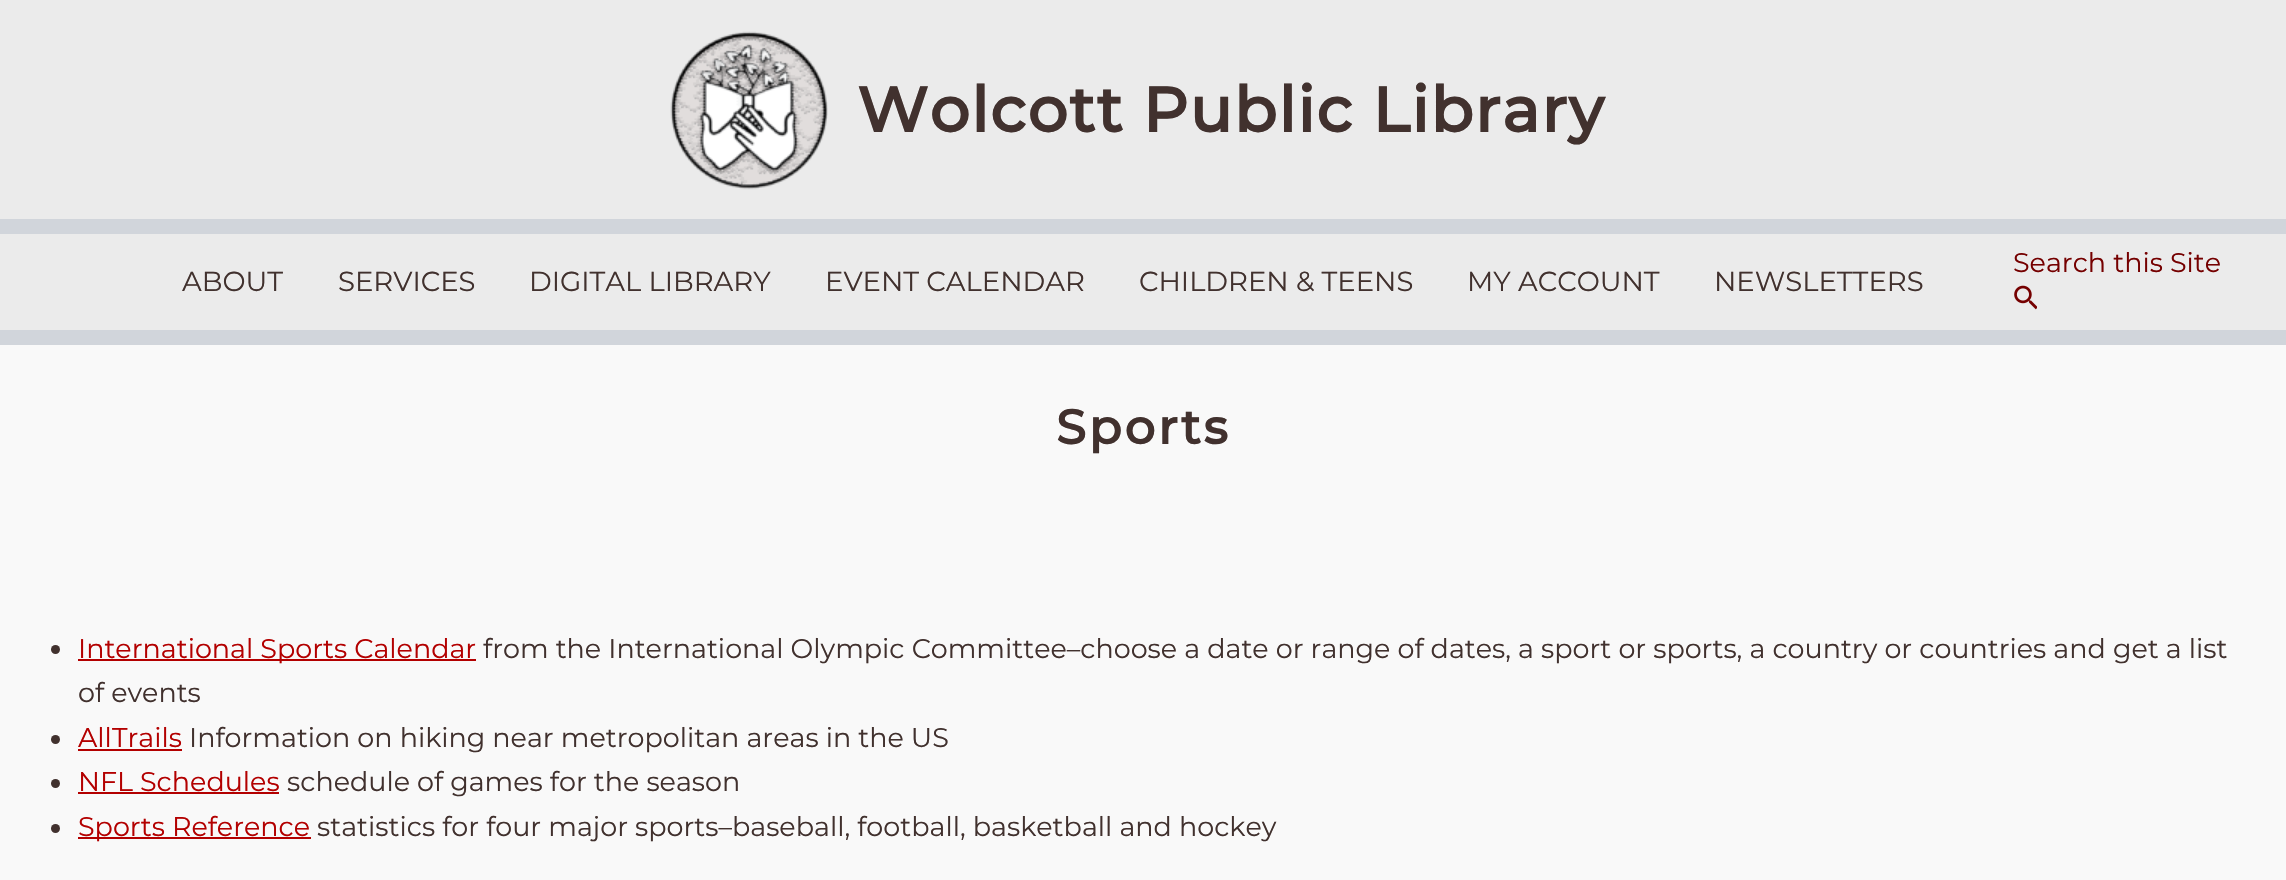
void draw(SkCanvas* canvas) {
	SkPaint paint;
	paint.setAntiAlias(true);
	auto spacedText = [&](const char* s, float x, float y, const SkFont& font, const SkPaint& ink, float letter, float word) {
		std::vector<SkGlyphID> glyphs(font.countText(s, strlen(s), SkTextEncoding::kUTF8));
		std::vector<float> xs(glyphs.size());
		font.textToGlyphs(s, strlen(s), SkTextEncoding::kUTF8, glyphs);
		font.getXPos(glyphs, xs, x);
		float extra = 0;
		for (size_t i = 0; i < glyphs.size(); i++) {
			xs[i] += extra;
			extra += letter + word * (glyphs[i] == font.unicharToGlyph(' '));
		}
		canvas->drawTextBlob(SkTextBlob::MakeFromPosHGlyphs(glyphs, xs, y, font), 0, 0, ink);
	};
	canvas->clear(0xfff9f9f9);
	paint.setColor(0xffebebeb);
	canvas->drawRect(SkRect::MakeXYWH(0, 0, 2286, 219), paint);
	paint.setColor(0xffd1d5db);
	canvas->drawRect(SkRect::MakeXYWH(0, 219, 2286, 15), paint);
	canvas->drawImageRect(SkImages::DeferredFromEncodedData(SkData::MakeFromFileName("img1.png")), SkRect::MakeXYWH(670, 31, 158, 159), SkSamplingOptions());
	SkFont f1(fontMgr->matchFamilyStyle("Montserrat", SkFontStyle::Bold()), 63);
	f1.setSubpixel(true);
	paint.setColor(0xff41312e);
	spacedText("Wolcott Public Library", 857, 132, f1, paint, 1.5, 0);
	paint.setColor(0xffebebeb);
	canvas->drawRect(SkRect::MakeXYWH(0, 234, 2286, 96), paint);
	paint.setColor(0xffd1d5db);
	canvas->drawRect(SkRect::MakeXYWH(0, 330, 2286, 15), paint);
	SkFont f2(fontMgr->matchFamilyStyle("Montserrat", SkFontStyle::Normal()), 27);
	f2.setSubpixel(true);
	paint.setColor(0xff750000);
	canvas->drawString("Search this Site", 2013, 272, f2, paint);
	canvas->drawImageRect(SkImages::DeferredFromEncodedData(SkData::MakeFromFileName("img2.png")), SkRect::MakeXYWH(2014, 285, 23, 25), SkSamplingOptions());
	SkFont f3(fontMgr->matchFamilyStyle("Montserrat", SkFontStyle::Normal()), 27.5);
	f3.setSubpixel(true);
	paint.setColor(0xff41312e);
	canvas->drawString("ABOUT", 182, 291, f3, paint);
	canvas->drawString("SERVICES", 338, 291, f3, paint);
	canvas->drawString("DIGITAL LIBRARY", 529, 291, f3, paint);
	canvas->drawString("EVENT CALENDAR", 825, 291, f3, paint);
	canvas->drawString("CHILDREN & TEENS", 1139, 291, f3, paint);
	canvas->drawString("MY ACCOUNT", 1467, 291, f3, paint);
	canvas->drawString("NEWSLETTERS", 1714, 291, f3, paint);
	SkFont f4(fontMgr->matchFamilyStyle("Montserrat", SkFontStyle::Bold()), 48);
	f4.setSubpixel(true);
	spacedText("Sports", 1056, 444, f4, paint, 3, 0);
	canvas->drawCircle(55.5, 649.5, 4.5, paint);
	paint.setColor(0xffb30000);
	canvas->drawRect(SkRect::MakeXYWH(78, 659, 398, 2), paint);
	canvas->drawString("International Sports Calendar", 78, 658, f2, paint);
	paint.setColor(0xff41312e);
	canvas->drawString("from the International Olympic Committee–choose a date or range of dates, a sport or sports, a country or countries and get a list", 483, 658, f2, paint);
	canvas->drawString("of events", 78, 702, f2, paint);
	canvas->drawCircle(55.5, 739.5, 4.5, paint);
	paint.setColor(0xffb30000);
	canvas->drawString("AllTrails", 78, 747, f2, paint);
	canvas->drawRect(SkRect::MakeXYWH(78, 749, 104, 2), paint);
	paint.setColor(0xff41312e);
	canvas->drawString("Information on hiking near metropolitan areas in the US", 189, 747, f2, paint);
	canvas->drawCircle(55.5, 783.5, 4.5, paint);
	paint.setColor(0xffb30000);
	canvas->drawString("NFL Schedules", 78, 791, f2, paint);
	canvas->drawRect(SkRect::MakeXYWH(78, 792, 201, 2), paint);
	paint.setColor(0xff41312e);
	canvas->drawString("schedule of games for the season", 287, 791, f2, paint);
	canvas->drawCircle(55.5, 828.5, 4.5, paint);
	paint.setColor(0xffb30000);
	canvas->drawRect(SkRect::MakeXYWH(78, 837, 233, 2), paint);
	canvas->drawString("Sports Reference", 78, 836, f2, paint);
	paint.setColor(0xff41312e);
	canvas->drawString("statistics for four major sports–baseball, football, basketball and hockey", 317, 836, f2, paint);
}
